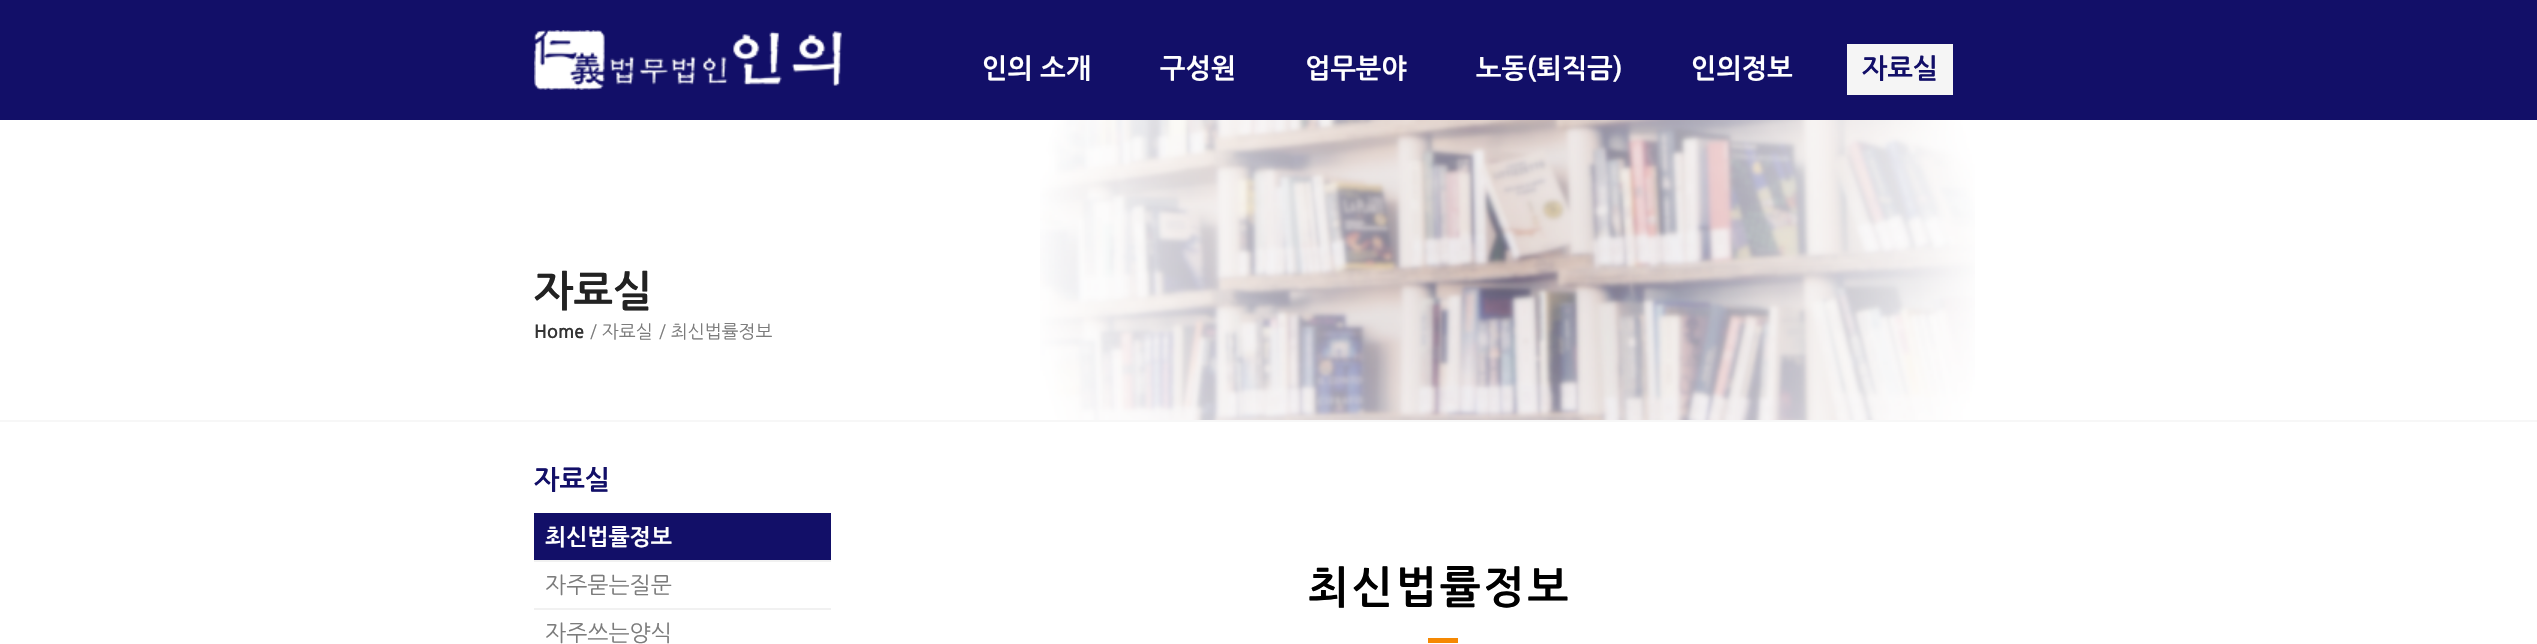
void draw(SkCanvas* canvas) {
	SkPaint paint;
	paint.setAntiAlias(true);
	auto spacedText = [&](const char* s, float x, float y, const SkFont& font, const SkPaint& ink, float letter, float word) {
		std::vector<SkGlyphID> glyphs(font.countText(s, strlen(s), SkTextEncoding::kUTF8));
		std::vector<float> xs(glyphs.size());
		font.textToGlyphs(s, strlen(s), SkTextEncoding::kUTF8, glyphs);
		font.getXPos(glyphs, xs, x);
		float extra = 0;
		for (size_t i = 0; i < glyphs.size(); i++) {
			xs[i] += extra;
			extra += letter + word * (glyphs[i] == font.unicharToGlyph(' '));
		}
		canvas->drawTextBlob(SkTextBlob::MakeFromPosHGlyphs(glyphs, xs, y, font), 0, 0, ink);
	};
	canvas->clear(0xffffffff);
	paint.setColor(0xff120f68);
	canvas->drawRect(SkRect::MakeXYWH(0, 0, 2537, 120), paint);
	canvas->drawImageRect(SkImages::DeferredFromEncodedData(SkData::MakeFromFileName("img1.png")), SkRect::MakeXYWH(534, 30, 308, 60), SkSamplingOptions());
	SkFont f1(fontMgr->matchFamilyStyle("NanumGothic", SkFontStyle::Bold()), 27);
	f1.setSubpixel(true);
	paint.setColor(0xffffffff);
	canvas->drawString("인의 소개", 982, 78, f1, paint);
	canvas->drawString("구성원", 1160, 78, f1, paint);
	canvas->drawString("업무분야", 1305, 78, f1, paint);
	canvas->drawString("노동(퇴직금)", 1476, 78, f1, paint);
	canvas->drawString("인의정보", 1691, 78, f1, paint);
	paint.setColor(0xfff5f5f5);
	canvas->drawRect(SkRect::MakeXYWH(1847, 44, 106, 51), paint);
	paint.setColor(0xff120f68);
	canvas->drawString("자료실", 1862, 78, f1, paint);
	canvas->drawImageRect(SkImages::DeferredFromEncodedData(SkData::MakeFromFileName("img2.png")), SkRect::MakeXYWH(1040, 120, 935, 300), SkSamplingOptions());
	paint.setColor(0xfff7f7f7);
	canvas->drawRect(SkRect::MakeXYWH(0, 420, 2537, 2), paint);
	SkFont f2(fontMgr->matchFamilyStyle("NanumGothic", SkFontStyle::Bold()), 42);
	f2.setSubpixel(true);
	paint.setColor(0xff222222);
	canvas->drawString("자료실", 534, 306, f2, paint);
	SkFont f3(fontMgr->matchFamilyStyle("NanumGothic", SkFontStyle::Bold()), 18);
	f3.setSubpixel(true);
	paint.setColor(0xff333333);
	canvas->drawString("Home", 534, 338, f3, paint);
	SkFont f4(fontMgr->matchFamilyStyle("NanumGothic", SkFontStyle::Normal()), 18);
	f4.setSubpixel(true);
	paint.setColor(0xff7c7c7c);
	canvas->drawString("/ 자료실", 590, 338, f4, paint);
	canvas->drawString("/ 최신법률정보", 659, 338, f4, paint);
	canvas->save();
	canvas->clipRect(SkRect::MakeXYWH(534, 467, 297, 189));
	paint.setColor(0xff120f68);
	canvas->drawString("자료실", 534, 489, f1, paint);
	canvas->restore();
	canvas->drawRect(SkRect::MakeXYWH(534, 513, 297, 47), paint);
	SkFont f5(fontMgr->matchFamilyStyle("NanumGothic", SkFontStyle::Bold()), 22.5);
	f5.setSubpixel(true);
	paint.setColor(0xffffffff);
	canvas->drawString("최신법률정보", 545, 545, f5, paint);
	paint.setColor(0xfff1f1f1);
	canvas->drawRect(SkRect::MakeXYWH(534, 560, 297, 2), paint);
	SkFont f6(fontMgr->matchFamilyStyle("NanumGothic", SkFontStyle::Normal()), 22.5);
	f6.setSubpixel(true);
	paint.setColor(0xff7c7c7c);
	canvas->drawString("자주묻는질문", 545, 593, f6, paint);
	paint.setColor(0xfff1f1f1);
	canvas->drawRect(SkRect::MakeXYWH(534, 608, 297, 2), paint);
	paint.setColor(0xff7c7c7c);
	canvas->drawString("자주쓰는양식", 545, 641, f6, paint);
	SkFont f7(fontMgr->matchFamilyStyle("NanumGothic", SkFontStyle::Bold()), 43.5);
	f7.setSubpixel(true);
	paint.setColor(0xff000000);
	spacedText("최신법률정보", 1308, 603, f7, paint, 3, 0);
	paint.setColor(0xfff58802);
	canvas->drawRect(SkRect::MakeXYWH(1428, 638, 30, 5), paint);
}
